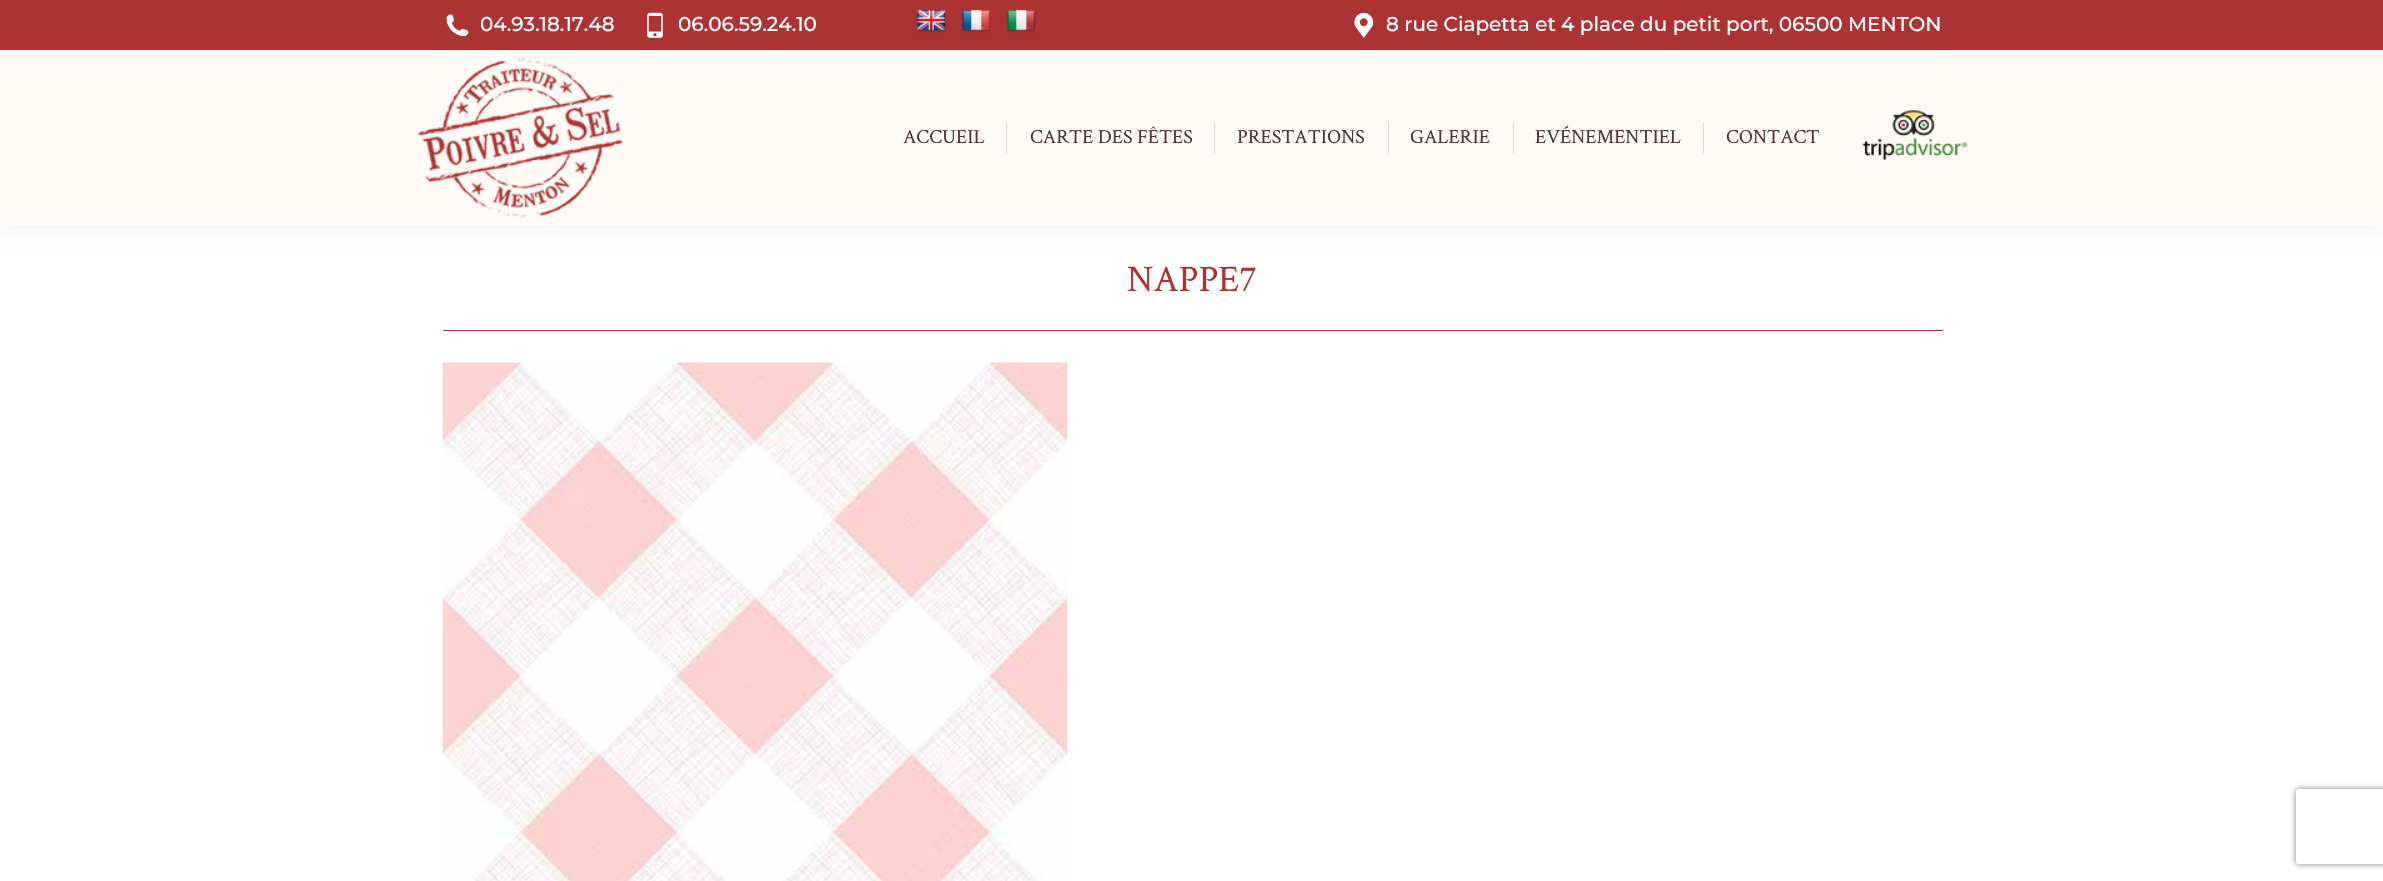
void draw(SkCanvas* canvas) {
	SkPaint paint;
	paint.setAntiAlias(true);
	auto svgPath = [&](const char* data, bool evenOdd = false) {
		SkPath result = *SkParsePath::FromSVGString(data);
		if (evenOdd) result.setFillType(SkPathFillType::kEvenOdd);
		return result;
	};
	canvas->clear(0xffffffff);
	paint.setColor(0x12000000);
	paint.setMaskFilter(SkMaskFilter::MakeBlur(kNormal_SkBlurStyle, 9.5));
	canvas->drawRect(SkRect::MakeXYWH(-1, -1, 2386, 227), paint);
	paint.setMaskFilter(nullptr);
	paint.setColor(0xfffffaf6);
	canvas->drawRect(SkRect::MakeXYWH(0, 50, 2383, 175), paint);
	paint.setColor(0xffab3334);
	canvas->drawRect(SkRect::MakeXYWH(0, 0, 2383, 50), paint);
	canvas->drawImageRect(SkImages::DeferredFromEncodedData(SkData::MakeFromFileName("img1.png")), SkRect::MakeXYWH(446, 14, 23, 23), SkSamplingOptions());
	SkFont f1(fontMgr->matchFamilyStyle("Montserrat", SkFontStyle(500, SkFontStyle::kNormal_Width, SkFontStyle::kUpright_Slant)), 20);
	f1.setSubpixel(true);
	paint.setColor(0xffffffff);
	canvas->drawString("04.93.18.17.48", 480, 31, f1, paint);
	canvas->drawImageRect(SkImages::DeferredFromEncodedData(SkData::MakeFromFileName("img2.png")), SkRect::MakeXYWH(647, 12, 16, 26), SkSamplingOptions());
	canvas->drawString("06.06.59.24.10", 678, 31, f1, paint);
	canvas->drawImageRect(SkImages::DeferredFromEncodedData(SkData::MakeFromFileName("img3.png")), SkRect::MakeXYWH(916, 9, 30, 24), SkSamplingOptions());
	canvas->drawImageRect(SkImages::DeferredFromEncodedData(SkData::MakeFromFileName("img4.png")), SkRect::MakeXYWH(961, 9, 30, 24), SkSamplingOptions());
	canvas->drawImageRect(SkImages::DeferredFromEncodedData(SkData::MakeFromFileName("img5.png")), SkRect::MakeXYWH(1006, 9, 30, 24), SkSamplingOptions());
	canvas->drawImageRect(SkImages::DeferredFromEncodedData(SkData::MakeFromFileName("img6.png")), SkRect::MakeXYWH(1354, 12, 20, 26), SkSamplingOptions());
	canvas->drawString("8 rue Ciapetta et 4 place du petit port, 06500 MENTON", 1386, 31, f1, paint);
	paint.setColor(0xff9d3334);
	canvas->drawRect(SkRect::MakeXYWH(443, 49, 1500, 1), paint);
	canvas->drawImageRect(SkImages::DeferredFromEncodedData(SkData::MakeFromFileName("img7.png")), SkRect::MakeXYWH(417, 57, 206, 162), SkSamplingOptions());
	SkFont f2(fontMgr->matchFamilyStyle("Crimson Text", SkFontStyle::Normal()), 20);
	f2.setSubpixel(true);
	paint.setColor(0xff4e3334);
	canvas->drawString("ACCUEIL", 903, 143, f2, paint);
	paint.setColor(0xffded9d6);
	canvas->drawRect(SkRect::MakeXYWH(1006, 123, 1, 30), paint);
	paint.setColor(0xff4e3334);
	canvas->drawString("CARTE DES FÊTES", 1030, 143, f2, paint);
	paint.setColor(0xffded9d6);
	canvas->drawRect(SkRect::MakeXYWH(1214, 123, 1, 30), paint);
	paint.setColor(0xff4e3334);
	canvas->drawString("PRESTATIONS", 1237, 143, f2, paint);
	paint.setColor(0xffded9d6);
	canvas->drawRect(SkRect::MakeXYWH(1388, 123, 1, 30), paint);
	paint.setColor(0xff4e3334);
	canvas->drawString("GALERIE", 1410, 143, f2, paint);
	paint.setColor(0xffded9d6);
	canvas->drawRect(SkRect::MakeXYWH(1513, 123, 1, 30), paint);
	paint.setColor(0xff4e3334);
	canvas->drawString("EVÉNEMENTIEL", 1535, 143, f2, paint);
	paint.setColor(0xffded9d6);
	canvas->drawRect(SkRect::MakeXYWH(1703, 123, 1, 30), paint);
	paint.setColor(0xff4e3334);
	canvas->drawString("CONTACT", 1726, 143, f2, paint);
	canvas->drawImageRect(SkImages::DeferredFromEncodedData(SkData::MakeFromFileName("img8.png")), SkRect::MakeXYWH(1862, 110, 106, 50), SkSamplingOptions());
	SkFont f3(fontMgr->matchFamilyStyle("Crimson Text", SkFontStyle::Normal()), 37.5);
	f3.setSubpixel(true);
	paint.setColor(0xffab3334);
	canvas->drawString("NAPPE7", 1127, 291, f3, paint);
	canvas->drawRect(SkRect::MakeXYWH(443, 330, 1500, 1), paint);
	canvas->drawImageRect(SkImages::DeferredFromEncodedData(SkData::MakeFromFileName("img9.png")), SkRect::MakeXYWH(442, 362, 626, 519), SkSamplingOptions());
	canvas->save();
	canvas->clipPath(svgPath("M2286 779H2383V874H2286ZM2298.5 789H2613.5C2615 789 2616 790 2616 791.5V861.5C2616 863 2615 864 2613.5 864H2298.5C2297 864 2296 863 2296 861.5V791.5C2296 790 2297 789 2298.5 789Z", true), true);
	paint.setColor(0xff808080);
	paint.setMaskFilter(SkMaskFilter::MakeBlur(kNormal_SkBlurStyle, 3));
	canvas->drawRoundRect(SkRect::MakeXYWH(2296, 789, 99, 75), 2.5, 2.5, paint);
	paint.setMaskFilter(nullptr);
	canvas->restore();
}
